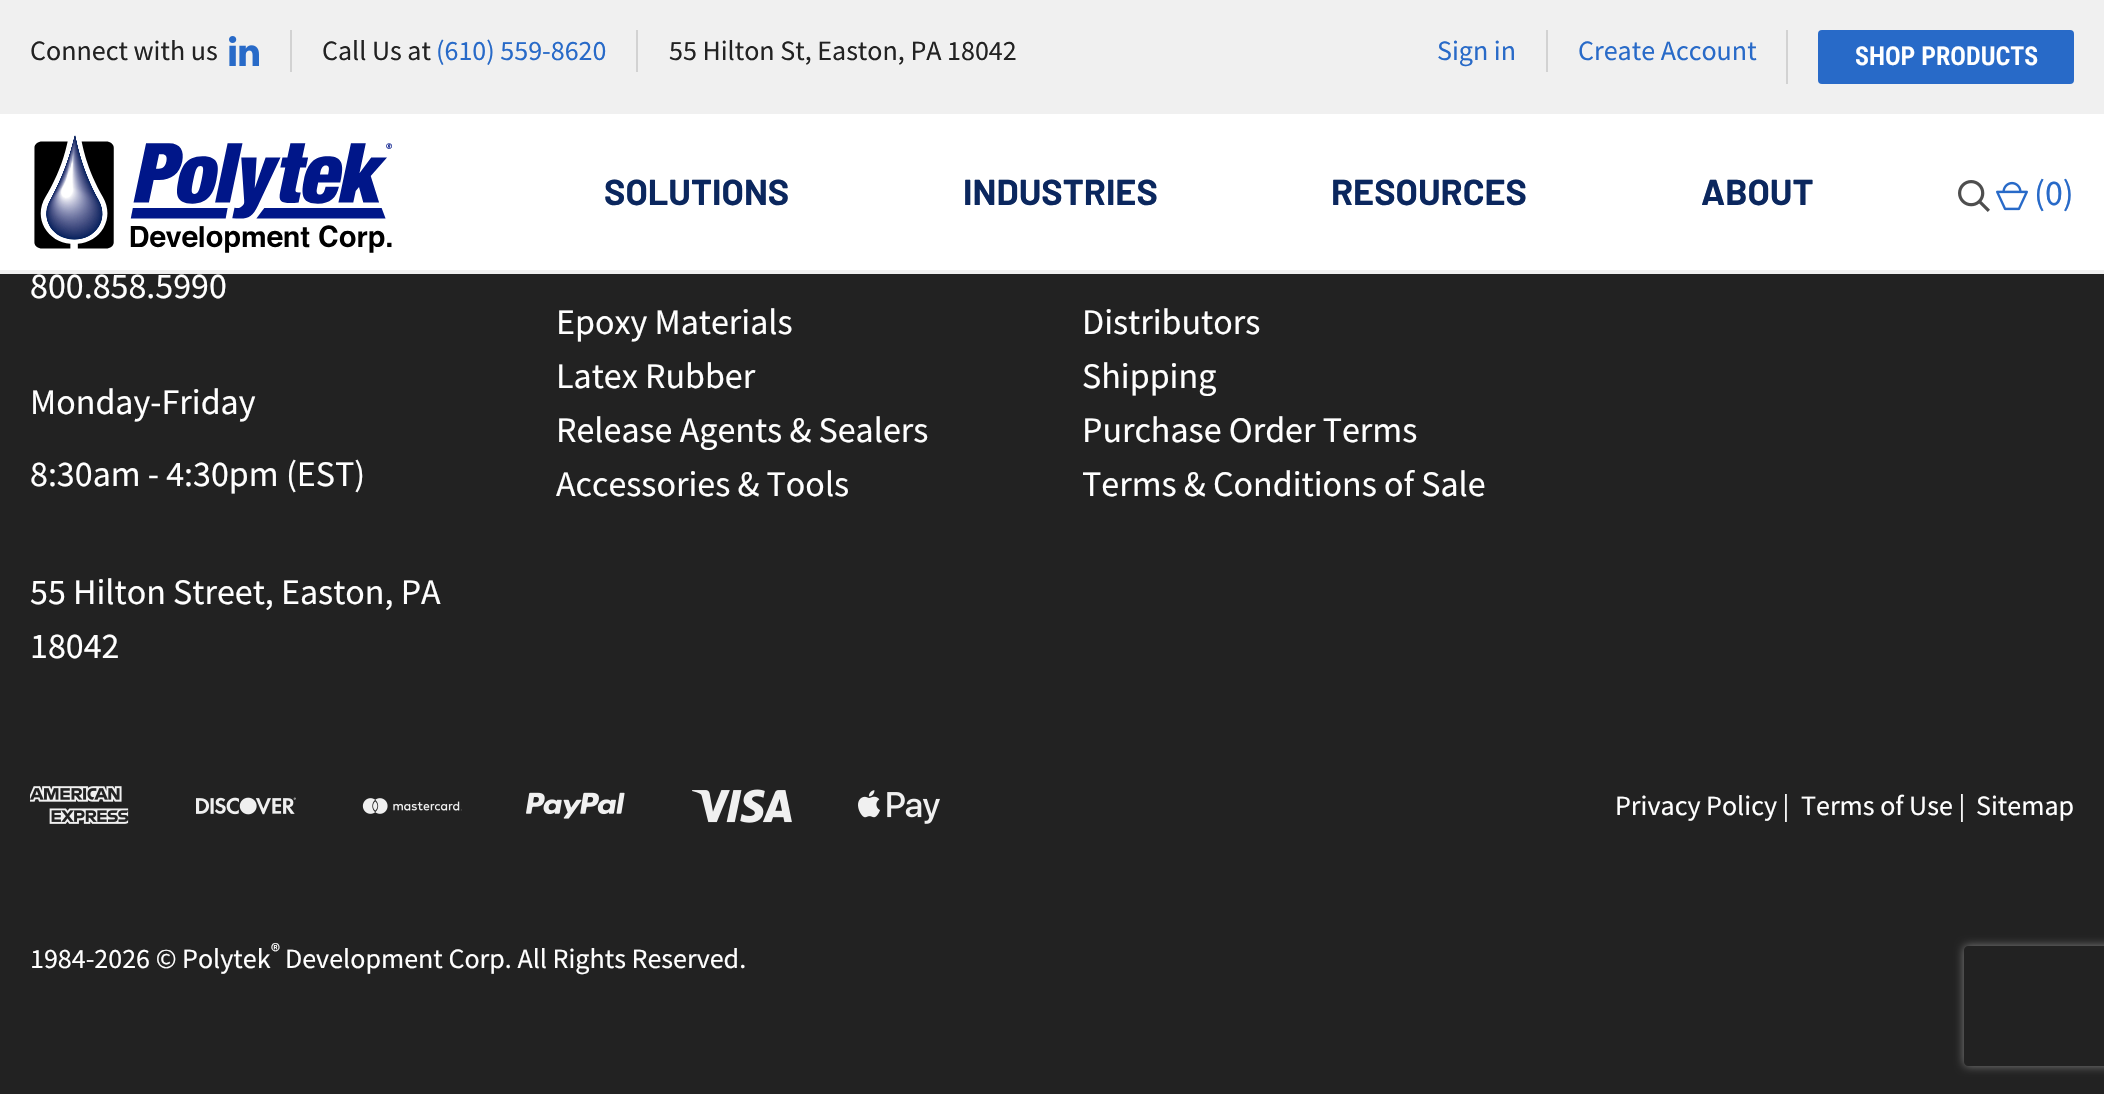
void draw(SkCanvas* canvas) {
	SkPaint paint;
	paint.setAntiAlias(true);
	auto svgPath = [&](const char* data, bool evenOdd = false) {
		SkPath result = *SkParsePath::FromSVGString(data);
		if (evenOdd) result.setFillType(SkPathFillType::kEvenOdd);
		return result;
	};
	canvas->clear(0xff222222);
	paint.setColor(0xfff0f0f0);
	canvas->drawRect(SkRect::MakeXYWH(0, 0, 2104, 114), paint);
	SkFont f1(fontMgr->matchFamilyStyle("Source Sans Pro", SkFontStyle::Normal()), 28);
	f1.setSubpixel(true);
	paint.setColor(0xff222222);
	canvas->drawString("Connect with us", 30, 60, f1, paint);
	canvas->drawImageRect(SkImages::DeferredFromEncodedData(SkData::MakeFromFileName("img1.png")), SkRect::MakeXYWH(229, 36, 30, 30), SkSamplingOptions());
	paint.setColor(0xffd2d2d2);
	canvas->drawRect(SkRect::MakeXYWH(290, 30, 2, 42), paint);
	paint.setColor(0xff222222);
	canvas->drawString("Call Us at", 322, 60, f1, paint);
	paint.setColor(0xff286ac8);
	canvas->drawString("(610) 559-8620", 436, 60, f1, paint);
	paint.setColor(0xffd2d2d2);
	canvas->drawRect(SkRect::MakeXYWH(636, 30, 2, 42), paint);
	paint.setColor(0xff222222);
	canvas->drawString("55 Hilton St, Easton, PA 18042", 669, 60, f1, paint);
	paint.setColor(0xff286ac8);
	canvas->drawString("Sign in", 1437, 60, f1, paint);
	paint.setColor(0xffd2d2d2);
	canvas->drawRect(SkRect::MakeXYWH(1546, 30, 2, 42), paint);
	paint.setColor(0xff286ac8);
	canvas->drawString("Create Account", 1578, 60, f1, paint);
	paint.setColor(0xffd2d2d2);
	canvas->drawRect(SkRect::MakeXYWH(1786, 30, 2, 54), paint);
	paint.setColor(0xff286ac8);
	canvas->drawRoundRect(SkRect::MakeXYWH(1818, 30, 256, 54), 4, 4, paint);
	SkFont f2(fontMgr->matchFamilyStyle("Roboto Condensed", SkFontStyle(600, SkFontStyle::kNormal_Width, SkFontStyle::kUpright_Slant)), 26);
	f2.setSubpixel(true);
	paint.setColor(0xffffffff);
	canvas->drawString("SHOP PRODUCTS", 1855, 65, f2, paint);
	canvas->drawRect(SkRect::MakeXYWH(0, 114, 2104, 156), paint);
	paint.setColor(0xfff0f0f0);
	canvas->drawRect(SkRect::MakeXYWH(0, 270, 2104, 4), paint);
	canvas->drawImageRect(SkImages::DeferredFromEncodedData(SkData::MakeFromFileName("img2.png")), SkRect::MakeXYWH(34, 135, 358, 118), SkSamplingOptions());
	SkFont f3(fontMgr->matchFamilyStyle("Barlow", SkFontStyle::Bold()), 36);
	f3.setSubpixel(true);
	paint.setColor(0xff0b275e);
	canvas->drawString("SOLUTIONS", 604, 205, f3, paint);
	canvas->drawString("INDUSTRIES", 963, 205, f3, paint);
	canvas->drawString("RESOURCES", 1331, 205, f3, paint);
	canvas->drawString("ABOUT", 1701, 205, f3, paint);
	canvas->drawImageRect(SkImages::DeferredFromEncodedData(SkData::MakeFromFileName("img3.png")), SkRect::MakeXYWH(1958, 180, 32, 32), SkSamplingOptions());
	canvas->drawImageRect(SkImages::DeferredFromEncodedData(SkData::MakeFromFileName("img4.png")), SkRect::MakeXYWH(1996, 181, 32, 30), SkSamplingOptions());
	SkFont f4(fontMgr->matchFamilyStyle("Source Sans Pro", SkFontStyle::Normal()), 36);
	f4.setSubpixel(true);
	paint.setColor(0xff286ac8);
	canvas->drawString("(0)", 2034, 205, f4, paint);
	paint.setColor(0xffffffff);
	canvas->drawString("800.858.5990", 30, 298, f4, paint);
	canvas->drawString("Monday-Friday", 30, 414, f4, paint);
	canvas->drawString("8:30am - 4:30pm (EST)", 30, 486, f4, paint);
	canvas->drawString("55 Hilton Street, Easton, PA", 30, 604, f4, paint);
	canvas->drawString("18042", 30, 658, f4, paint);
	canvas->drawString("Epoxy Materials", 556, 334, f4, paint);
	canvas->drawString("Latex Rubber", 556, 388, f4, paint);
	canvas->drawString("Release Agents & Sealers", 556, 442, f4, paint);
	canvas->drawString("Accessories & Tools", 556, 496, f4, paint);
	canvas->drawString("Distributors", 1082, 334, f4, paint);
	canvas->drawString("Shipping", 1082, 388, f4, paint);
	canvas->drawString("Purchase Order Terms", 1082, 442, f4, paint);
	canvas->drawString("Terms & Conditions of Sale", 1082, 496, f4, paint);
	canvas->drawImageRect(SkImages::DeferredFromEncodedData(SkData::MakeFromFileName("img5.png")), SkRect::MakeXYWH(30, 786, 99, 38), SkSamplingOptions());
	canvas->drawImageRect(SkImages::DeferredFromEncodedData(SkData::MakeFromFileName("img6.png")), SkRect::MakeXYWH(196, 797, 100, 18), SkSamplingOptions());
	canvas->drawImageRect(SkImages::DeferredFromEncodedData(SkData::MakeFromFileName("img7.png")), SkRect::MakeXYWH(362, 798, 100, 16), SkSamplingOptions());
	canvas->drawImageRect(SkImages::DeferredFromEncodedData(SkData::MakeFromFileName("img8.png")), SkRect::MakeXYWH(526, 792, 99, 27), SkSamplingOptions());
	canvas->drawImageRect(SkImages::DeferredFromEncodedData(SkData::MakeFromFileName("img9.png")), SkRect::MakeXYWH(692, 789, 100, 34), SkSamplingOptions());
	canvas->drawImageRect(SkImages::DeferredFromEncodedData(SkData::MakeFromFileName("img10.png")), SkRect::MakeXYWH(858, 790, 82, 34), SkSamplingOptions());
	canvas->drawString("Privacy Policy |", 1615, 815, f1, paint);
	canvas->drawString("Terms of Use |", 1801, 815, f1, paint);
	canvas->drawString("Sitemap", 1976, 815, f1, paint);
	canvas->drawString("1984-2026 © Polytek", 30, 968, f1, paint);
	SkFont f5(fontMgr->matchFamilyStyle("Source Sans Pro", SkFontStyle::Normal()), 21);
	f5.setSubpixel(true);
	canvas->drawString("®", 271, 958, f5, paint);
	canvas->drawString("Development Corp. All Rights Reserved.", 285, 968, f1, paint);
	canvas->save();
	canvas->clipPath(svgPath("M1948 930H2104V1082H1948ZM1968 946H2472C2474 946 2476 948 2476 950V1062C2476 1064 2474 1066 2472 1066H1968C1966 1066 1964 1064 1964 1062V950C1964 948 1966 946 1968 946Z", true), true);
	paint.setColor(0xff808080);
	paint.setMaskFilter(SkMaskFilter::MakeBlur(kNormal_SkBlurStyle, 5));
	canvas->drawRoundRect(SkRect::MakeXYWH(1964, 946, 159, 120), 4, 4, paint);
	paint.setMaskFilter(nullptr);
	canvas->restore();
}
